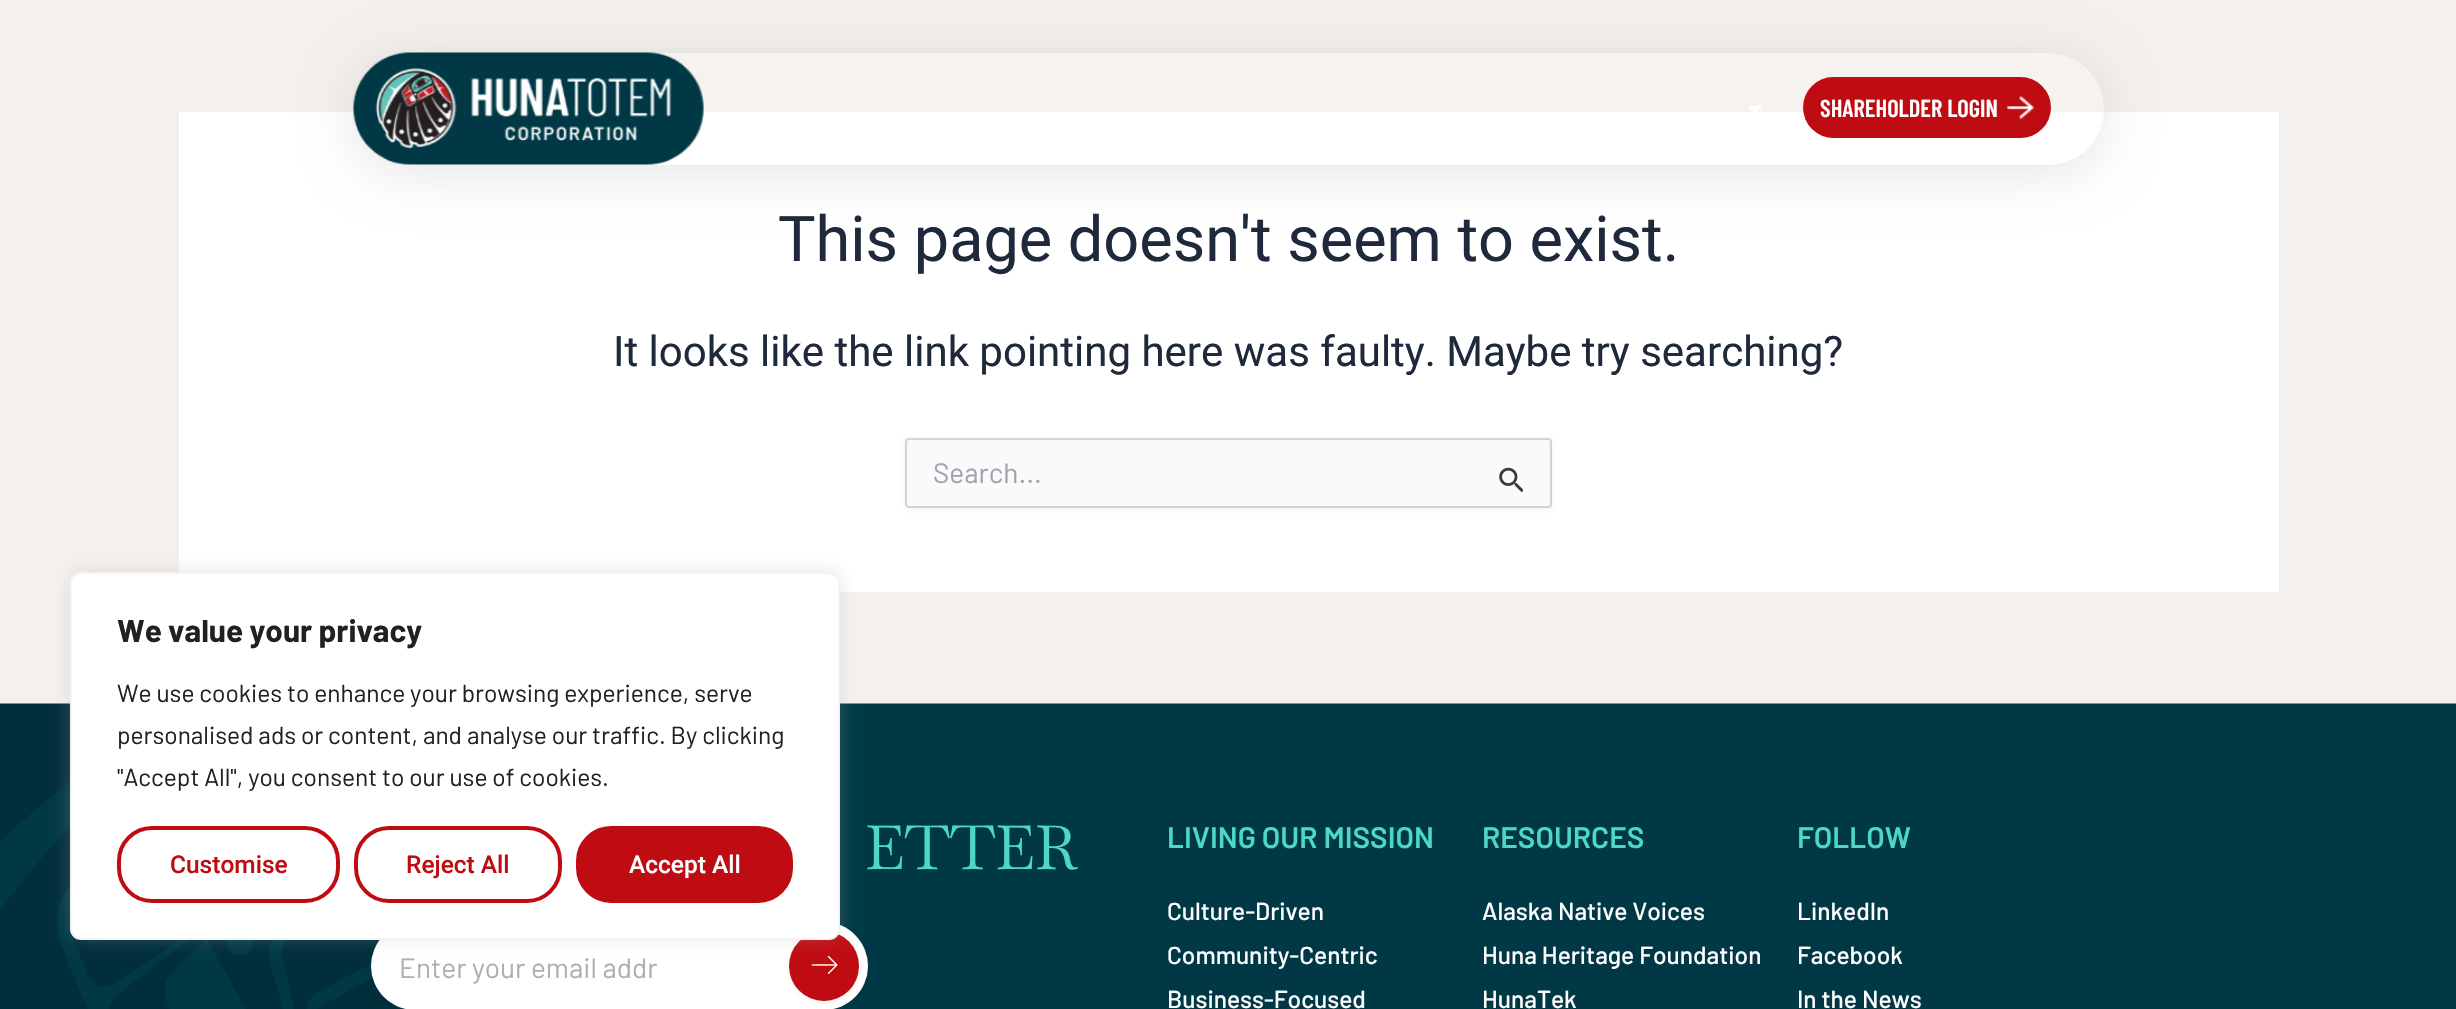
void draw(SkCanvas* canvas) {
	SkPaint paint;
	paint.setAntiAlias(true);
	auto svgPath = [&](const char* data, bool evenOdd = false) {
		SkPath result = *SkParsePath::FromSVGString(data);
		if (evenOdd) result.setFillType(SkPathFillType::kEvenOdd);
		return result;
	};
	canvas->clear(0xfff3f0ed);
	paint.setColor(0xffffffff);
	canvas->drawRect(SkRect::MakeXYWH(179, 112, 2100, 480), paint);
	canvas->save();
	canvas->clipPath(svgPath("M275 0H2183V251H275ZM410 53H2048C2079 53 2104 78 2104 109C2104 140 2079 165 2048 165H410C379 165 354 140 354 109C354 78 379 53 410 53Z", true), true);
	paint.setColor(0x1a000000);
	paint.setMaskFilter(SkMaskFilter::MakeBlur(kNormal_SkBlurStyle, 26));
	canvas->drawRoundRect(SkRect::MakeXYWH(354, 60, 1750, 112), 56, 56, paint);
	paint.setMaskFilter(nullptr);
	canvas->restore();
	paint.setColor(0x2bffffff);
	canvas->drawRoundRect(SkRect::MakeXYWH(354, 53, 1750, 112), 56, 56, paint);
	canvas->drawImageRect(SkImages::DeferredFromEncodedData(SkData::MakeFromFileName("img1.png")), SkRect::MakeXYWH(353, 52, 351, 113), SkSamplingOptions());
	canvas->drawImageRect(SkImages::DeferredFromEncodedData(SkData::MakeFromFileName("img2.png")), SkRect::MakeXYWH(1748, 105, 15, 7), SkSamplingOptions());
	paint.setColor(0xffbf0c12);
	canvas->drawRoundRect(SkRect::MakeXYWH(1803, 77, 248, 61), 30.5, 30.5, paint);
	SkFont f1(fontMgr->matchFamilyStyle("Barlow Condensed", SkFontStyle(600, SkFontStyle::kNormal_Width, SkFontStyle::kUpright_Slant)), 24.5);
	f1.setSubpixel(true);
	paint.setColor(0xffffffff);
	canvas->drawString("SHAREHOLDER LOGIN", 1820, 117, f1, paint);
	canvas->drawImageRect(SkImages::DeferredFromEncodedData(SkData::MakeFromFileName("img3.png")), SkRect::MakeXYWH(2007, 96, 27, 24), SkSamplingOptions());
	SkFont f2(fontMgr->matchFamilyStyle("Roboto", SkFontStyle::Normal()), 63);
	f2.setSubpixel(true);
	paint.setColor(0xff1e293b);
	canvas->drawString("This page doesn't seem to exist.", 778, 261, f2, paint);
	SkFont f3(fontMgr->matchFamilyStyle("Roboto", SkFontStyle::Normal()), 42);
	f3.setSubpixel(true);
	canvas->drawString("It looks like the link pointing here was faulty. Maybe try searching?", 613, 366, f3, paint);
	paint.setColor(0x0d000000);
	paint.setMaskFilter(SkMaskFilter::MakeBlur(kNormal_SkBlurStyle, 2));
	canvas->drawRoundRect(SkRect::MakeXYWH(905, 439, 647, 70), 4, 4, paint);
	paint.setMaskFilter(nullptr);
	paint.setColor(0xfffafafa);
	canvas->drawRoundRect(SkRect::MakeXYWH(906, 439, 645, 68), 3, 3, paint);
	paint.setStroke(true);
	paint.setStrokeWidth(2);
	paint.setColor(0xffd1d5db);
	canvas->drawRoundRect(SkRect::MakeXYWH(906, 439, 645, 68), 3, 3, paint);
	SkFont f4(fontMgr->matchFamilyStyle("Barlow", SkFontStyle::Normal()), 28);
	f4.setSubpixel(true);
	paint.setStroke(false);
	paint.setColor(0xff9ca3af);
	canvas->drawString("Search...", 933, 483, f4, paint);
	canvas->drawImageRect(SkImages::DeferredFromEncodedData(SkData::MakeFromFileName("img4.png")), SkRect::MakeXYWH(1499, 467, 24, 26), SkSamplingOptions());
	canvas->drawImageRect(SkImages::DeferredFromEncodedData(SkData::MakeFromFileName("img5.png")), SkRect::MakeXYWH(0, 703, 2456, 306), SkSamplingOptions());
	SkFont f5(fontMgr->matchFamilyStyle("Baskervville", SkFontStyle::Normal()), 61);
	f5.setSubpixel(true);
	paint.setColor(0xff4dd8c4);
	canvas->drawString("ETTER", 865, 869, f5, paint);
	paint.setColor(0xffffffff);
	canvas->drawRoundRect(SkRect::MakeXYWH(371, 922, 497, 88), 44, 44, paint);
	paint.setColor(0xffafafaf);
	canvas->drawString("Enter your email addr", 399, 978, f4, paint);
	paint.setColor(0x0d000000);
	paint.setMaskFilter(SkMaskFilter::MakeBlur(kNormal_SkBlurStyle, 2));
	canvas->drawRoundRect(SkRect::MakeXYWH(789, 933, 70, 70), 35, 35, paint);
	paint.setMaskFilter(nullptr);
	paint.setColor(0xffbf0c12);
	canvas->drawCircle(824, 966, 35, paint);
	canvas->drawImageRect(SkImages::DeferredFromEncodedData(SkData::MakeFromFileName("img6.png")), SkRect::MakeXYWH(811, 955, 27, 19), SkSamplingOptions());
	SkFont f6(fontMgr->matchFamilyStyle("Barlow", SkFontStyle(600, SkFontStyle::kNormal_Width, SkFontStyle::kUpright_Slant)), 29.75);
	f6.setSubpixel(true);
	paint.setColor(0xff4dd8c4);
	canvas->drawString("LIVING OUR MISSION", 1167, 848, f6, paint);
	SkFont f7(fontMgr->matchFamilyStyle("Barlow", SkFontStyle(500, SkFontStyle::kNormal_Width, SkFontStyle::kUpright_Slant)), 24.5);
	f7.setSubpixel(true);
	paint.setColor(0xffffffff);
	canvas->drawString("Culture-Driven", 1167, 920, f7, paint);
	canvas->drawString("Community-Centric", 1167, 964, f7, paint);
	canvas->drawString("Business-Focused", 1167, 1008, f7, paint);
	paint.setColor(0xff4dd8c4);
	canvas->drawString("RESOURCES", 1482, 848, f6, paint);
	paint.setColor(0xffffffff);
	canvas->drawString("Alaska Native Voices", 1482, 920, f7, paint);
	canvas->drawString("Huna Heritage Foundation", 1482, 964, f7, paint);
	canvas->drawString("HunaTek", 1482, 1008, f7, paint);
	paint.setColor(0xff4dd8c4);
	canvas->drawString("FOLLOW", 1797, 848, f6, paint);
	paint.setColor(0xffffffff);
	canvas->drawString("LinkedIn", 1797, 920, f7, paint);
	canvas->drawString("Facebook", 1797, 964, f7, paint);
	canvas->drawString("In the News", 1797, 1008, f7, paint);
	paint.setColor(0x4dacabab);
	paint.setMaskFilter(SkMaskFilter::MakeBlur(kNormal_SkBlurStyle, 9));
	canvas->drawRoundRect(SkRect::MakeXYWH(70, 571, 770, 367), 11, 11, paint);
	paint.setMaskFilter(nullptr);
	paint.setColor(0xffffffff);
	canvas->drawRoundRect(SkRect::MakeXYWH(71, 573, 768, 366), 10, 10, paint);
	paint.setStroke(true);
	paint.setColor(0xfff4f4f4);
	canvas->drawRoundRect(SkRect::MakeXYWH(71, 573, 768, 366), 10, 10, paint);
	SkFont f8(fontMgr->matchFamilyStyle("Barlow", SkFontStyle::Bold()), 31.5);
	f8.setSubpixel(true);
	paint.setStroke(false);
	paint.setColor(0xff212121);
	canvas->drawString("We value your privacy", 117, 642, f8, paint);
	SkFont f9(fontMgr->matchFamilyStyle("Barlow", SkFontStyle::Normal()), 24.5);
	f9.setSubpixel(true);
	canvas->drawString("We use cookies to enhance your browsing experience, serve", 117, 702, f9, paint);
	canvas->drawString("personalised ads or content, and analyse our traffic. By clicking", 117, 744, f9, paint);
	canvas->drawString("\"Accept All\", you consent to our use of cookies.", 117, 786, f9, paint);
	paint.setStroke(true);
	paint.setStrokeWidth(4);
	paint.setColor(0xffbf0c12);
	canvas->drawRoundRect(SkRect::MakeXYWH(119, 828, 219, 73), 33, 33, paint);
	SkFont f10(fontMgr->matchFamilyStyle("Roboto", SkFontStyle(500, SkFontStyle::kNormal_Width, SkFontStyle::kUpright_Slant)), 24.5);
	f10.setSubpixel(true);
	paint.setStroke(false);
	canvas->drawString("Customise", 170, 873, f10, paint);
	paint.setStroke(true);
	canvas->drawRoundRect(SkRect::MakeXYWH(356, 828, 204, 73), 33, 33, paint);
	paint.setStroke(false);
	canvas->drawString("Reject All", 406, 873, f10, paint);
	canvas->drawRoundRect(SkRect::MakeXYWH(578, 828, 213, 73), 33, 33, paint);
	paint.setStroke(true);
	canvas->drawRoundRect(SkRect::MakeXYWH(578, 828, 213, 73), 33, 33, paint);
	paint.setStroke(false);
	paint.setColor(0xffffffff);
	canvas->drawString("Accept All", 629, 873, f10, paint);
}
